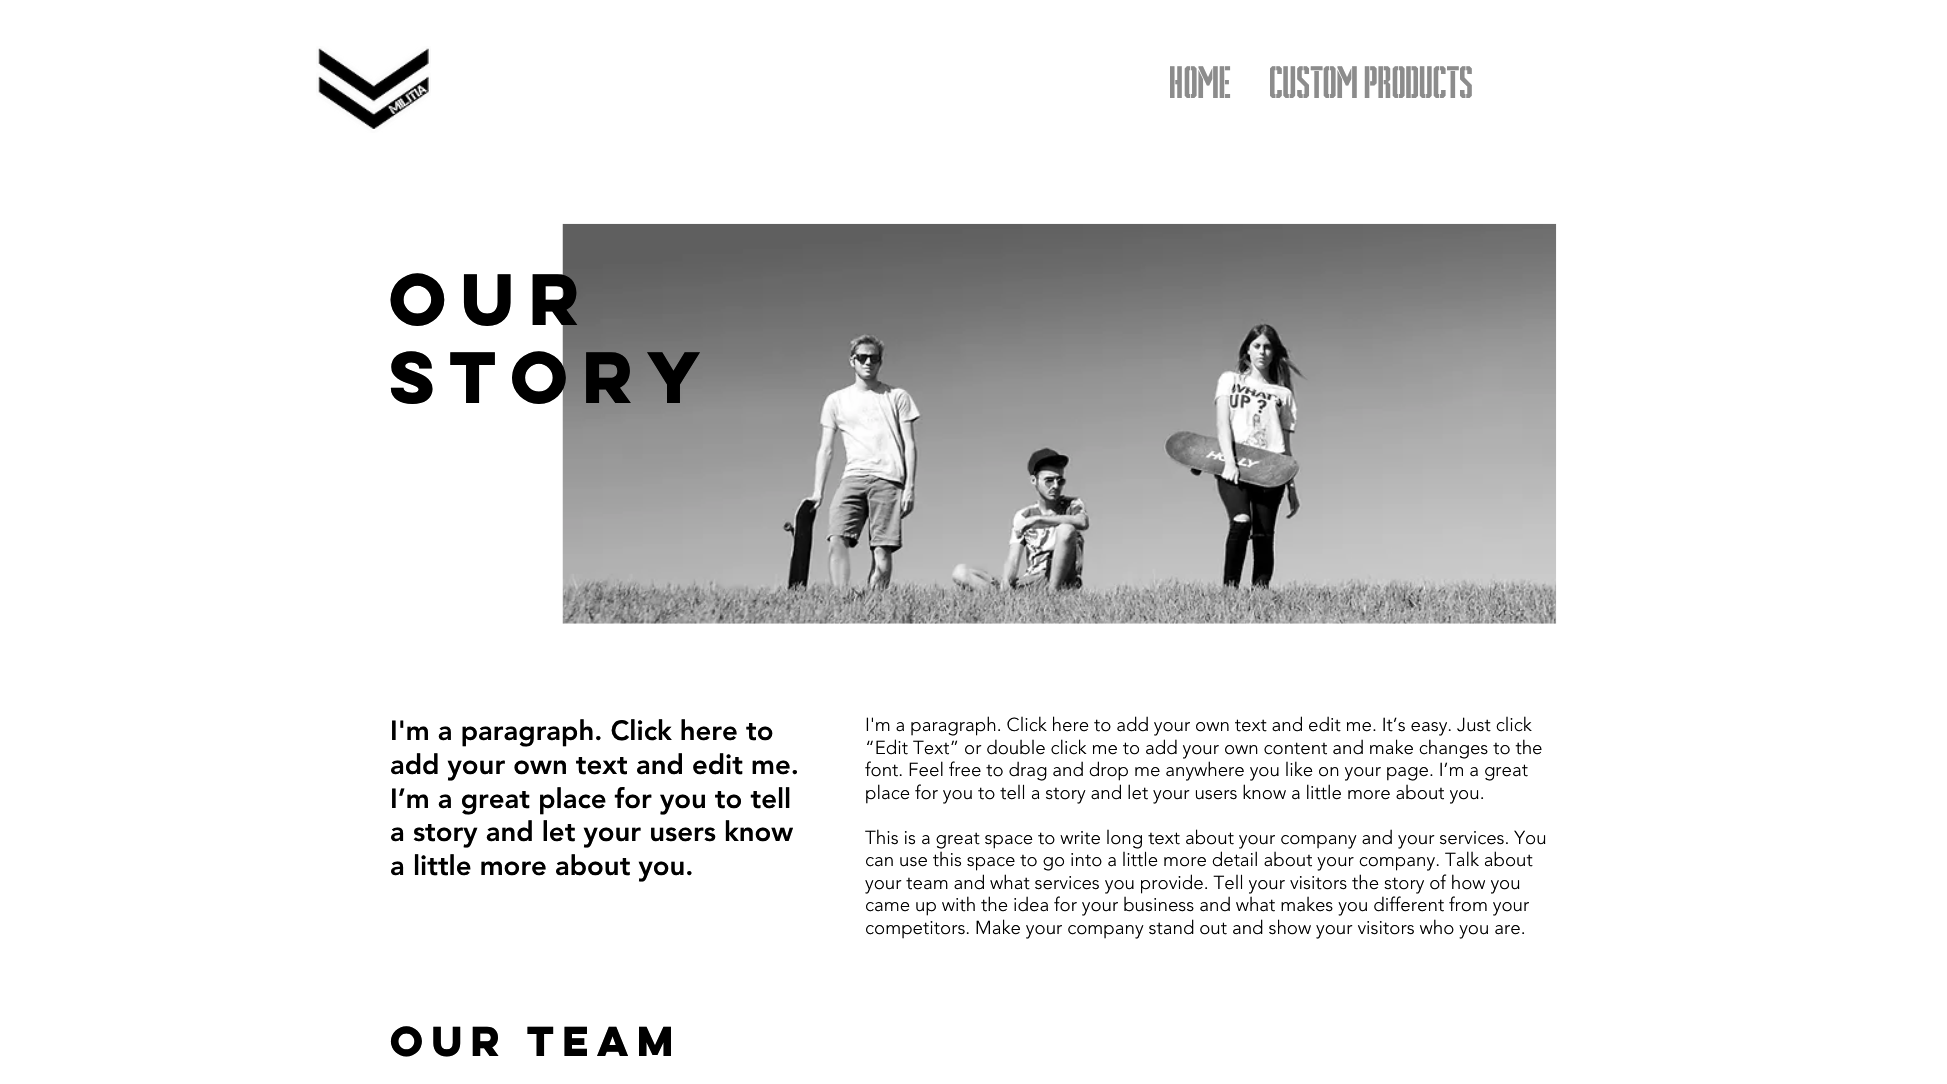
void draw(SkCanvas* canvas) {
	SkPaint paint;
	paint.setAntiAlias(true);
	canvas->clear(0xffffffff);
	canvas->drawImageRect(SkImages::DeferredFromEncodedData(SkData::MakeFromFileName("img1.png")), SkRect::MakeXYWH(316, 46, 115, 87), SkSamplingOptions());
	SkFont f1(fontMgr->matchFamilyStyle("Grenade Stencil", SkFontStyle::Normal()), 43.75);
	f1.setSubpixel(true);
	paint.setColor(0xff8c8c8c);
	canvas->drawString("HOME", 1170, 98, f1, paint);
	canvas->drawString("CUSTOM PRODUCTS", 1270, 98, f1, paint);
	canvas->drawImageRect(SkImages::DeferredFromEncodedData(SkData::MakeFromFileName("img2.png")), SkRect::MakeXYWH(562, 223, 995, 401), SkSamplingOptions());
	SkFont f2(fontMgr->matchFamilyStyle("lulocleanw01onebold", SkFontStyle::Bold()), 65);
	f2.setSubpixel(true);
	paint.setColor(0xff000000);
	canvas->drawString("OUR", 389, 325, f2, paint);
	canvas->drawString("STORY", 389, 403, f2, paint);
	SkFont f3(fontMgr->matchFamilyStyle("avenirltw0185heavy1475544", SkFontStyle(900, SkFontStyle::kNormal_Width, SkFontStyle::kUpright_Slant)), 27.5);
	f3.setSubpixel(true);
	canvas->drawString("I'm a paragraph. Click here to", 390, 740, f3, paint);
	canvas->drawString("add your own text and edit me.", 390, 774, f3, paint);
	canvas->drawString("I’m a great place for you to tell", 390, 808, f3, paint);
	canvas->drawString("a story and let your users know", 390, 841, f3, paint);
	canvas->drawString("a little more about you.", 390, 875, f3, paint);
	SkFont f4(fontMgr->matchFamilyStyle("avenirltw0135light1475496", SkFontStyle(300, SkFontStyle::kNormal_Width, SkFontStyle::kUpright_Slant)), 18.75);
	f4.setSubpixel(true);
	canvas->drawString("I'm a paragraph. Click here to add your own text and edit me. It’s easy. Just click", 865, 731, f4, paint);
	canvas->drawString("“Edit Text” or double click me to add your own content and make changes to the", 865, 754, f4, paint);
	canvas->drawString("font. Feel free to drag and drop me anywhere you like on your page. I’m a great", 865, 776, f4, paint);
	canvas->drawString("place for you to tell a story and let your users know a little more about you.", 865, 799, f4, paint);
	canvas->drawString("This is a great space to write long text about your company and your services. You", 865, 844, f4, paint);
	canvas->drawString("can use this space to go into a little more detail about your company. Talk about", 865, 866, f4, paint);
	canvas->drawString("your team and what services you provide. Tell your visitors the story of how you", 865, 889, f4, paint);
	canvas->drawString("came up with the idea for your business and what makes you different from your", 865, 911, f4, paint);
	canvas->drawString("competitors. Make your company stand out and show your visitors who you are.", 865, 934, f4, paint);
	SkFont f5(fontMgr->matchFamilyStyle("lulocleanw01onebold", SkFontStyle::Bold()), 37.5);
	f5.setSubpixel(true);
	canvas->drawString("OUR TEAM", 390, 1056, f5, paint);
}
